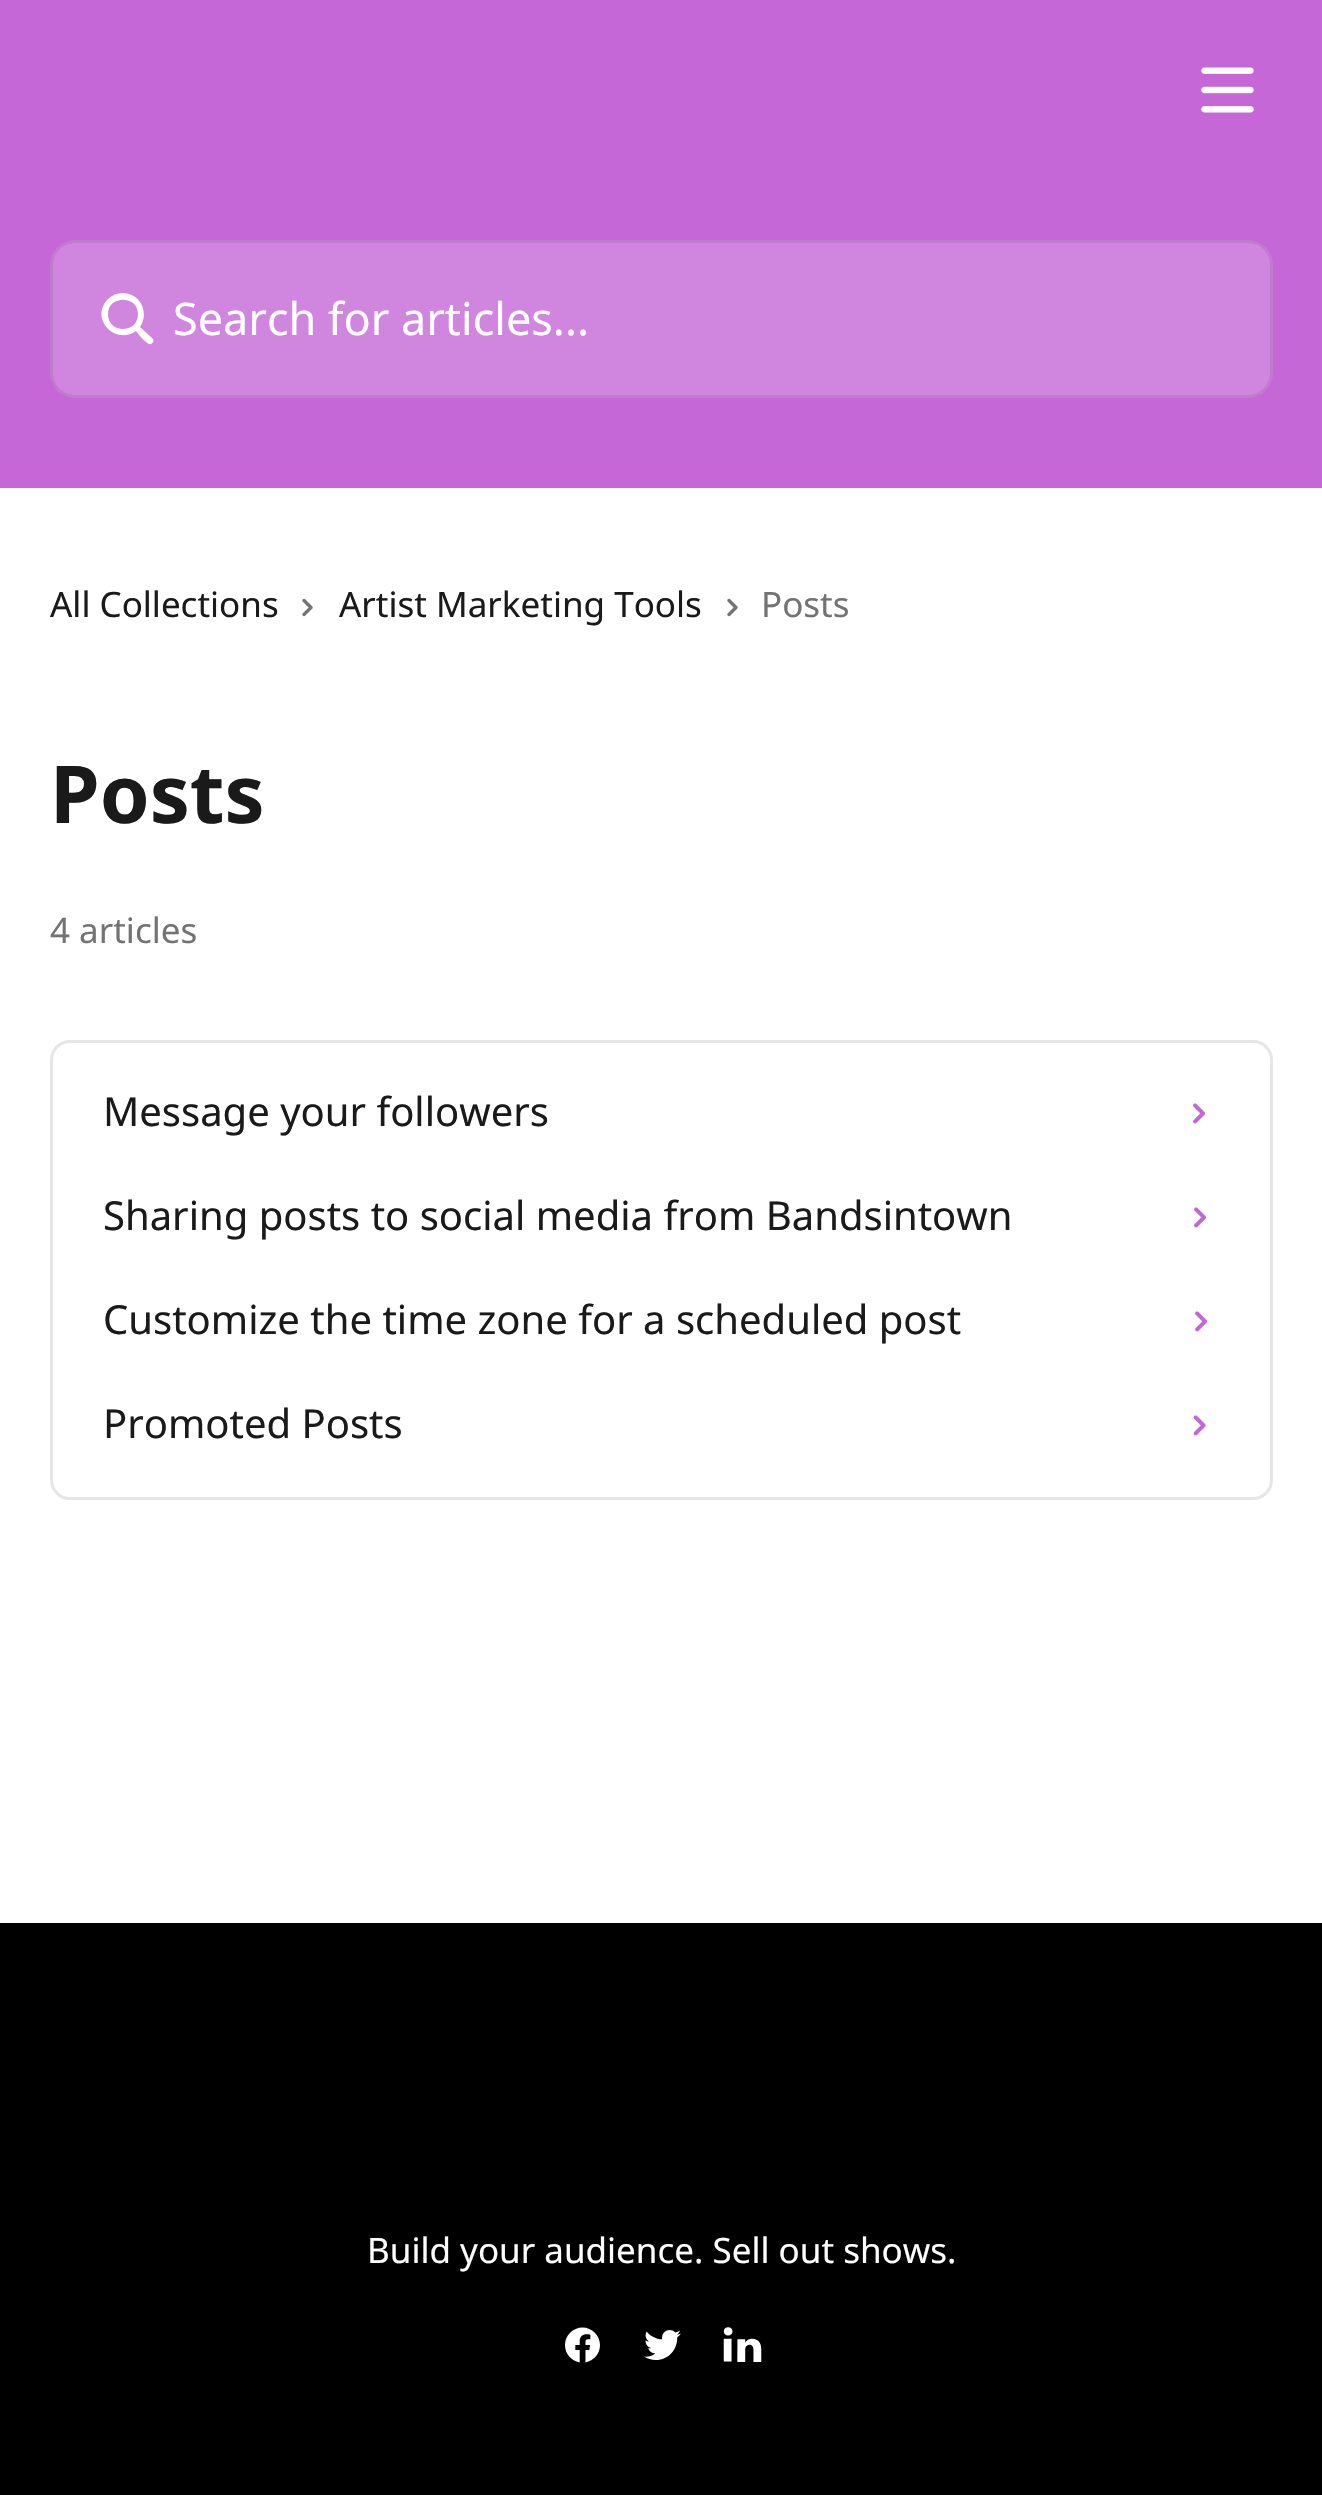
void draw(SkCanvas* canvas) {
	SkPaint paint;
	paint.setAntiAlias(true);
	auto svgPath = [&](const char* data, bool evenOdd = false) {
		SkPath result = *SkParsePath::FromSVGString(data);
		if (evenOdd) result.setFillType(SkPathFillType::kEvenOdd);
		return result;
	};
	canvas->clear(0xffffffff);
	paint.setColor(0xffc567d7);
	canvas->drawRect(SkRect::MakeXYWH(0, 0, 1322, 488), paint);
	canvas->drawImageRect(SkImages::DeferredFromEncodedData(SkData::MakeFromFileName("img1.png")), SkRect::MakeXYWH(1201, 67, 53, 46), SkSamplingOptions());
	paint.setColor(0x33ffffff);
	canvas->drawRoundRect(SkRect::MakeXYWH(50, 240, 1223, 158), 25, 25, paint);
	paint.setStroke(true);
	paint.setStrokeWidth(3);
	paint.setColor(0x14000000);
	canvas->drawRoundRect(SkRect::MakeXYWH(51.5, 241.5, 1220, 155), 23.5, 23.5, paint);
	paint.setStroke(false);
	paint.setColor(0xffffffff);
	canvas->drawPath(svgPath("M108 314C108 295 138 295 138 314C138 334 108 334 108 314ZM123 293C117 293 112 295 108 299C89 318 115 346 136 331C138 334 148 346 151 344C153 343 154 341 153 339L140 327C150 313 140 293 123 293Z", true), paint);
	SkFont f1(fontMgr->matchFamilyStyle("Noto Sans", SkFontStyle::Normal()), 45);
	f1.setSubpixel(true);
	canvas->drawString("Search for articles...", 173, 335, f1, paint);
	SkFont f2(fontMgr->matchFamilyStyle("Noto Sans", SkFontStyle::Normal()), 35);
	f2.setSubpixel(true);
	paint.setColor(0xff1a1a1a);
	canvas->drawString("All Collections", 50, 617, f2, paint);
	canvas->drawImageRect(SkImages::DeferredFromEncodedData(SkData::MakeFromFileName("img2.png")), SkRect::MakeXYWH(302, 598, 11, 19), SkSamplingOptions());
	canvas->drawString("Artist Marketing Tools", 339, 617, f2, paint);
	canvas->drawImageRect(SkImages::DeferredFromEncodedData(SkData::MakeFromFileName("img2.png")), SkRect::MakeXYWH(727, 598, 11, 19), SkSamplingOptions());
	paint.setColor(0xff737373);
	canvas->drawString("Posts", 761, 617, f2, paint);
	SkFont f3(fontMgr->matchFamilyStyle("Noto Sans", SkFontStyle::Bold()), 80);
	f3.setSubpixel(true);
	paint.setColor(0xff1a1a1a);
	canvas->drawString("Posts", 50, 823, f3, paint);
	paint.setColor(0xff737373);
	canvas->drawString("4 articles", 50, 943, f2, paint);
	paint.setStroke(true);
	paint.setColor(0xffe6e6e6);
	canvas->drawRoundRect(SkRect::MakeXYWH(51.5, 1041.5, 1220, 457), 18.5, 18.5, paint);
	SkFont f4(fontMgr->matchFamilyStyle("Noto Sans", SkFontStyle::Normal()), 40);
	f4.setSubpixel(true);
	paint.setStroke(false);
	paint.setColor(0xff1a1a1a);
	canvas->drawString("Message your followers", 103, 1126, f4, paint);
	canvas->drawImageRect(SkImages::DeferredFromEncodedData(SkData::MakeFromFileName("img3.png")), SkRect::MakeXYWH(1193, 1103, 12, 21), SkSamplingOptions());
	canvas->drawString("Sharing posts to social media from Bandsintown", 103, 1230, f4, paint);
	canvas->drawImageRect(SkImages::DeferredFromEncodedData(SkData::MakeFromFileName("img4.png")), SkRect::MakeXYWH(1194, 1207, 13, 21), SkSamplingOptions());
	canvas->drawString("Customize the time zone for a scheduled post", 103, 1334, f4, paint);
	canvas->drawImageRect(SkImages::DeferredFromEncodedData(SkData::MakeFromFileName("img5.png")), SkRect::MakeXYWH(1195, 1311, 13, 21), SkSamplingOptions());
	canvas->drawString("Promoted Posts", 103, 1438, f4, paint);
	canvas->drawImageRect(SkImages::DeferredFromEncodedData(SkData::MakeFromFileName("img6.png")), SkRect::MakeXYWH(1193, 1415, 13, 21), SkSamplingOptions());
	paint.setColor(0xff000000);
	canvas->drawRect(SkRect::MakeXYWH(0, 1923, 1322, 572), paint);
	paint.setColor(0xffffffff);
	canvas->drawString("Build your audience. Sell out shows.", 367, 2263, f2, paint);
	canvas->drawImageRect(SkImages::DeferredFromEncodedData(SkData::MakeFromFileName("img7.png")), SkRect::MakeXYWH(565, 2327, 35, 36), SkSamplingOptions());
	canvas->drawImageRect(SkImages::DeferredFromEncodedData(SkData::MakeFromFileName("img8.png")), SkRect::MakeXYWH(644, 2330, 37, 30), SkSamplingOptions());
	canvas->drawImageRect(SkImages::DeferredFromEncodedData(SkData::MakeFromFileName("img9.png")), SkRect::MakeXYWH(723, 2327, 39, 35), SkSamplingOptions());
}
